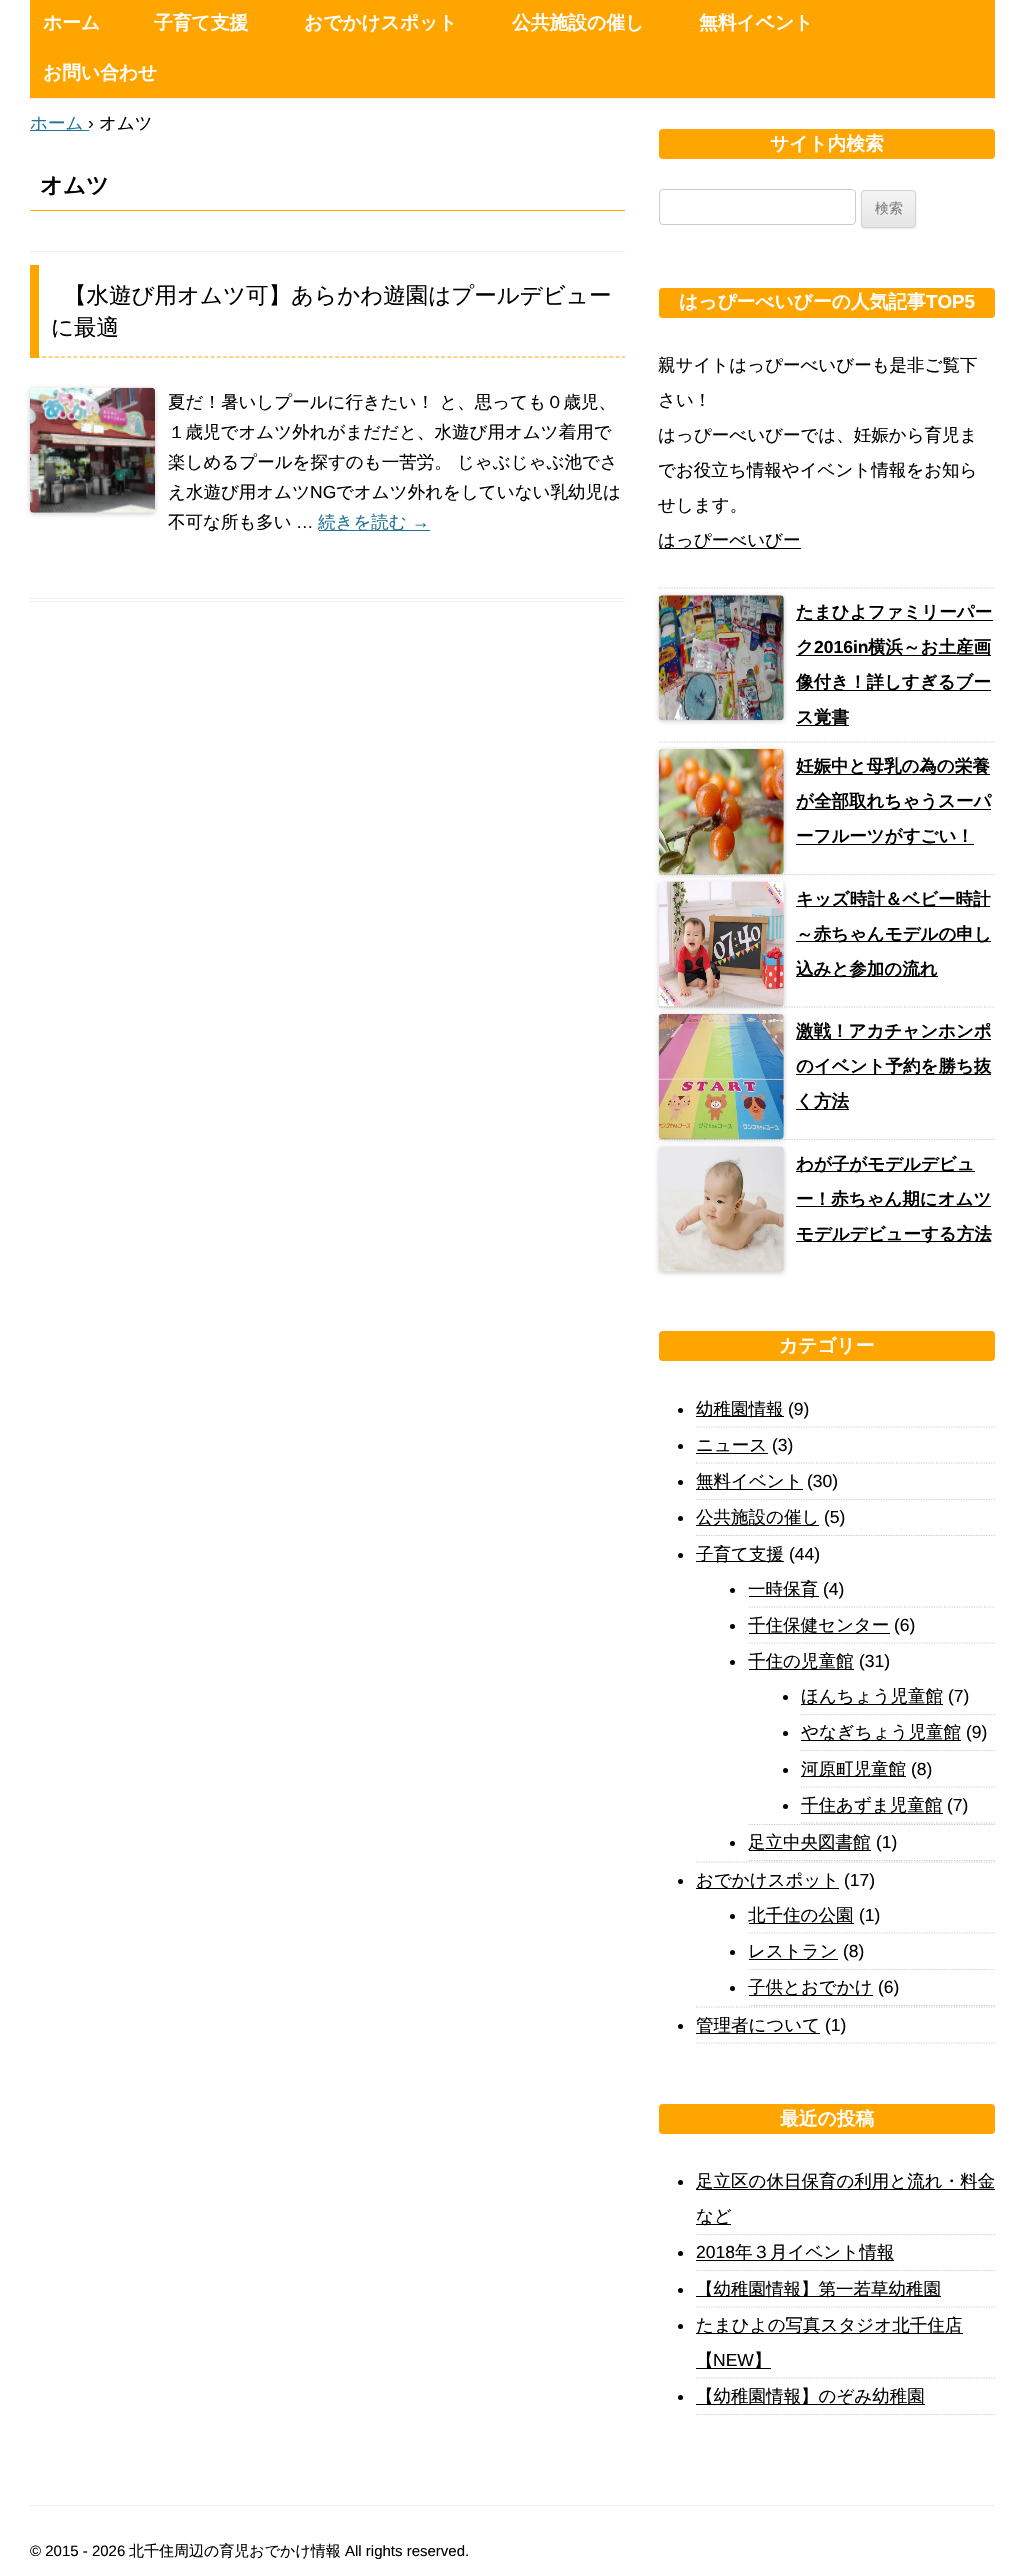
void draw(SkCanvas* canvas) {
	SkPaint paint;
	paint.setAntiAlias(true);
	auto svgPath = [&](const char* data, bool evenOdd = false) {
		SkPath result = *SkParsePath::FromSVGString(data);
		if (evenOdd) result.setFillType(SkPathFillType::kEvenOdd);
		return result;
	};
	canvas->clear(0xffffffff);
	paint.setColor(0xffffa500);
	canvas->drawRect(SkRect::MakeXYWH(30, 0, 965, 98), paint);
	paint.setColor(0xffededed);
	canvas->drawRect(SkRect::MakeXYWH(30, 98, 965, 1), paint);
	SkFont f1(fontMgr->matchFamilyStyle("WenQuanYi Zen Hei", SkFontStyle::Bold()), 18.75);
	f1.setSubpixel(true);
	paint.setColor(0xffffffff);
	canvas->drawString("ホーム", 43, 29, f1, paint);
	canvas->drawString("子育て支援", 154, 29, f1, paint);
	canvas->drawString("おでかけスポット", 304, 29, f1, paint);
	canvas->drawString("公共施設の催し", 512, 29, f1, paint);
	canvas->drawString("無料イベント", 699, 29, f1, paint);
	canvas->drawString("お問い合わせ", 43, 79, f1, paint);
	paint.setColor(0xff21759b);
	canvas->drawRect(SkRect::MakeXYWH(30, 130, 59, 1), paint);
	SkFont f2(fontMgr->matchFamilyStyle("WenQuanYi Zen Hei", SkFontStyle(500, SkFontStyle::kNormal_Width, SkFontStyle::kUpright_Slant)), 17.5);
	f2.setSubpixel(true);
	canvas->drawString("ホーム", 30, 129, f2, paint);
	SkFont f3(fontMgr->matchFamilyStyle("Liberation Sans", SkFontStyle::Normal()), 17.5);
	f3.setSubpixel(true);
	paint.setColor(0xff000000);
	canvas->drawString("›", 88, 129, f3, paint);
	canvas->drawString("オムツ", 99, 129, f2, paint);
	paint.setColor(0xffededed);
	canvas->drawRect(SkRect::MakeXYWH(30, 251, 595, 1), paint);
	paint.setColor(0xffffa500);
	canvas->drawRect(SkRect::MakeXYWH(30, 210, 595, 1), paint);
	SkFont f4(fontMgr->matchFamilyStyle("WenQuanYi Zen Hei", SkFontStyle::Bold()), 22.5);
	f4.setSubpixel(true);
	paint.setColor(0xff000000);
	canvas->drawString("オムツ", 40, 193, f4, paint);
	paint.setColor(0xffededed);
	canvas->drawRect(SkRect::MakeXYWH(30, 598, 595, 1), paint);
	canvas->drawRect(SkRect::MakeXYWH(30, 601, 595, 1), paint);
	paint.setStroke(true);
	paint.setStrokeWidth(1.2);
	paint.setColor(0xffffa500);
	paint.setPathEffect(SkDashPathEffect::Make({{3.75f, 2.48f}}, 0));
	canvas->drawPath(svgPath("M30 357H625"), paint);
	paint.setPathEffect(nullptr);
	paint.setStroke(false);
	canvas->drawRect(SkRect::MakeXYWH(30, 265, 9, 93), paint);
	SkFont f5(fontMgr->matchFamilyStyle("WenQuanYi Zen Hei", SkFontStyle(500, SkFontStyle::kNormal_Width, SkFontStyle::kUpright_Slant)), 22.5);
	f5.setSubpixel(true);
	paint.setColor(0xff000000);
	canvas->drawString("【水遊び用オムツ可】あらかわ遊園はプールデビュー", 64, 303, f5, paint);
	canvas->drawString("に最適", 51, 335, f5, paint);
	paint.setColor(0x33000000);
	paint.setMaskFilter(SkMaskFilter::MakeBlur(kNormal_SkBlurStyle, 2.5));
	canvas->drawRoundRect(SkRect::MakeXYWH(30, 389, 125, 125), 4, 4, paint);
	paint.setMaskFilter(nullptr);
	canvas->drawImageRect(SkImages::DeferredFromEncodedData(SkData::MakeFromFileName("img1.png")), SkRect::MakeXYWH(30, 387, 125, 126), SkSamplingOptions());
	paint.setColor(0xff000000);
	canvas->drawString("夏だ！暑いしプールに行きたい！ と、思っても０歳児、", 168, 408, f2, paint);
	canvas->drawString("１歳児でオムツ外れがまだだと、水遊び用オムツ着用で", 168, 438, f2, paint);
	canvas->drawString("楽しめるプールを探すのも一苦労。 じゃぶじゃぶ池でさ", 168, 468, f2, paint);
	canvas->drawString("え水遊び用オムツ", 168, 498, f2, paint);
	canvas->drawString("NG", 310, 498, f3, paint);
	canvas->drawString("でオムツ外れをしていない乳幼児は", 336, 498, f2, paint);
	canvas->drawString("不可な所も多い", 168, 528, f2, paint);
	canvas->drawString("…", 296, 528, f3, paint);
	paint.setColor(0xff21759b);
	canvas->drawRect(SkRect::MakeXYWH(319, 530, 111, 1), paint);
	canvas->drawString("続きを読む", 318, 528, f2, paint);
	canvas->drawString("→", 412, 528, f3, paint);
	paint.setColor(0xffffa500);
	canvas->drawRoundRect(SkRect::MakeXYWH(659, 129, 336, 30), 4, 4, paint);
	paint.setColor(0xffffffff);
	canvas->drawString("サイト内検索", 770, 150, f1, paint);
	paint.setStroke(true);
	paint.setStrokeWidth(1);
	paint.setColor(0xffcccccc);
	canvas->drawRoundRect(SkRect::MakeXYWH(659.5, 189.5, 196, 35), 3.5, 3.5, paint);
	paint.setStroke(false);
	paint.setColor(0x1a404040);
	paint.setMaskFilter(SkMaskFilter::MakeBlur(kNormal_SkBlurStyle, 1));
	canvas->drawRoundRect(SkRect::MakeXYWH(861, 191, 55, 38), 4, 4, paint);
	paint.setMaskFilter(nullptr);
	paint.setColor(0xffe6e6e6);
	canvas->drawRoundRect(SkRect::MakeXYWH(861, 190, 55, 38), 4, 4, paint);
	canvas->save();
	canvas->clipPath(svgPath("M865 190H912C914 190 916 192 916 194V224C916 226 914 228 912 228H865C863 228 861 226 861 224V194C861 192 863 190 865 190Z"), true);
	{
		const SkColor colors[] = {0xfff4f4f4, 0xffe6e6e6};
		const float stops[] = {0, 1};
		const SkPoint ends[] = {{889, 191}, {889, 226}};
		paint.setShader(SkGradientShader::MakeLinear(ends, colors, stops, 2, SkTileMode::kClamp));
		paint.setAlpha(255);
	}
	canvas->drawRect(SkRect::MakeXYWH(861, 191, 55, 35), paint);
	canvas->restore();
	paint.setStroke(true);
	paint.setShader(nullptr);
	paint.setColor(0xffd2d2d2);
	canvas->drawRoundRect(SkRect::MakeXYWH(861.5, 190.5, 54, 37), 3.5, 3.5, paint);
	SkFont f6(fontMgr->matchFamilyStyle("WenQuanYi Zen Hei", SkFontStyle(500, SkFontStyle::kNormal_Width, SkFontStyle::kUpright_Slant)), 14);
	f6.setSubpixel(true);
	paint.setStroke(false);
	paint.setColor(0xff7c7c7c);
	canvas->drawString("検索", 875, 213, f6, paint);
	paint.setColor(0xffffa500);
	canvas->drawRoundRect(SkRect::MakeXYWH(659, 288, 336, 30), 4, 4, paint);
	paint.setColor(0xffffffff);
	canvas->drawString("はっぴーべいびーの人気記事", 679, 308, f1, paint);
	SkFont f7(fontMgr->matchFamilyStyle("Liberation Sans", SkFontStyle::Bold()), 18.75);
	f7.setSubpixel(true);
	canvas->drawString("TOP5", 926, 308, f7, paint);
	paint.setColor(0xff000000);
	canvas->drawString("親サイトはっぴーべいびーも是非ご覧下", 658, 371, f2, paint);
	canvas->drawString("さい！", 658, 406, f2, paint);
	canvas->drawString("はっぴーべいびーでは、妊娠から育児ま", 658, 441, f2, paint);
	canvas->drawString("でお役立ち情報やイベント情報をお知ら", 658, 476, f2, paint);
	canvas->drawString("せします。", 658, 511, f2, paint);
	canvas->drawRect(SkRect::MakeXYWH(659, 548, 142, 1), paint);
	canvas->drawString("はっぴーべいびー", 658, 546, f2, paint);
	paint.setStroke(true);
	paint.setStrokeWidth(1.2);
	paint.setColor(0xffcccccc);
	paint.setPathEffect(SkDashPathEffect::Make({{1.25f, 1.25f}}, 0));
	canvas->drawPath(svgPath("M659 588H995"), paint);
	paint.setPathEffect(nullptr);
	paint.setStroke(false);
	paint.setColor(0x33000000);
	paint.setMaskFilter(SkMaskFilter::MakeBlur(kNormal_SkBlurStyle, 2.5));
	canvas->drawRoundRect(SkRect::MakeXYWH(659, 596, 125, 125), 4, 4, paint);
	paint.setMaskFilter(nullptr);
	canvas->drawImageRect(SkImages::DeferredFromEncodedData(SkData::MakeFromFileName("img2.png")), SkRect::MakeXYWH(658, 595, 126, 126), SkSamplingOptions());
	paint.setColor(0xff000000);
	canvas->drawRect(SkRect::MakeXYWH(796, 620, 197, 1), paint);
	SkFont f8(fontMgr->matchFamilyStyle("WenQuanYi Zen Hei", SkFontStyle::Bold()), 17.5);
	f8.setSubpixel(true);
	canvas->drawString("たまひよファミリーパー", 796, 618, f8, paint);
	canvas->drawRect(SkRect::MakeXYWH(796, 655, 195, 1), paint);
	canvas->drawString("ク", 796, 653, f8, paint);
	SkFont f9(fontMgr->matchFamilyStyle("Liberation Sans", SkFontStyle::Bold()), 17.5);
	f9.setSubpixel(true);
	canvas->drawString("2016in", 814, 653, f9, paint);
	canvas->drawString("横浜～お土産画", 868, 653, f8, paint);
	canvas->drawRect(SkRect::MakeXYWH(796, 690, 195, 1), paint);
	canvas->drawString("像付き！詳しすぎるブー", 796, 688, f8, paint);
	canvas->drawRect(SkRect::MakeXYWH(796, 725, 53, 1), paint);
	canvas->drawString("ス覚書", 796, 723, f8, paint);
	paint.setStroke(true);
	paint.setColor(0xffcccccc);
	paint.setPathEffect(SkDashPathEffect::Make({{1.25f, 1.25f}}, 0));
	canvas->drawPath(svgPath("M659 742H995"), paint);
	paint.setPathEffect(nullptr);
	paint.setPathEffect(SkDashPathEffect::Make({{1.25f, 1.25f}}, 0));
	canvas->drawPath(svgPath("M659 874.5H995"), paint);
	paint.setPathEffect(nullptr);
	paint.setStroke(false);
	paint.setColor(0x33000000);
	paint.setMaskFilter(SkMaskFilter::MakeBlur(kNormal_SkBlurStyle, 2.5));
	canvas->drawRoundRect(SkRect::MakeXYWH(659, 750, 125, 125), 4, 4, paint);
	paint.setMaskFilter(nullptr);
	canvas->drawImageRect(SkImages::DeferredFromEncodedData(SkData::MakeFromFileName("img3.png")), SkRect::MakeXYWH(658, 749, 126, 125), SkSamplingOptions());
	paint.setColor(0xff000000);
	canvas->drawRect(SkRect::MakeXYWH(796, 774, 194, 1), paint);
	canvas->drawString("妊娠中と母乳の為の栄養", 796, 772, f8, paint);
	canvas->drawRect(SkRect::MakeXYWH(796, 809, 195, 1), paint);
	canvas->drawString("が全部取れちゃうスーパ", 796, 807, f8, paint);
	canvas->drawRect(SkRect::MakeXYWH(796, 844, 178, 1), paint);
	canvas->drawString("ーフルーツがすごい！", 796, 842, f8, paint);
	paint.setStroke(true);
	paint.setColor(0xffcccccc);
	paint.setPathEffect(SkDashPathEffect::Make({{1.25f, 1.25f}}, 0));
	canvas->drawPath(svgPath("M659 1007H995"), paint);
	paint.setPathEffect(nullptr);
	paint.setStroke(false);
	paint.setColor(0x33000000);
	paint.setMaskFilter(SkMaskFilter::MakeBlur(kNormal_SkBlurStyle, 2.5));
	canvas->drawRoundRect(SkRect::MakeXYWH(659, 883, 125, 125), 4, 4, paint);
	paint.setMaskFilter(nullptr);
	canvas->drawImageRect(SkImages::DeferredFromEncodedData(SkData::MakeFromFileName("img4.png")), SkRect::MakeXYWH(659, 881, 125, 126), SkSamplingOptions());
	paint.setColor(0xff000000);
	canvas->drawRect(SkRect::MakeXYWH(796, 906, 194, 1), paint);
	canvas->drawString("キッズ時計＆ベビー時計", 796, 905, f8, paint);
	canvas->drawRect(SkRect::MakeXYWH(796, 941, 195, 1), paint);
	canvas->drawString("～赤ちゃんモデルの申し", 796, 940, f8, paint);
	canvas->drawRect(SkRect::MakeXYWH(796, 976, 142, 1), paint);
	canvas->drawString("込みと参加の流れ", 796, 975, f8, paint);
	paint.setStroke(true);
	paint.setColor(0xffcccccc);
	paint.setPathEffect(SkDashPathEffect::Make({{1.25f, 1.25f}}, 0));
	canvas->drawPath(svgPath("M659 1139.5H995"), paint);
	paint.setPathEffect(nullptr);
	paint.setStroke(false);
	paint.setColor(0x33000000);
	paint.setMaskFilter(SkMaskFilter::MakeBlur(kNormal_SkBlurStyle, 2.5));
	canvas->drawRoundRect(SkRect::MakeXYWH(659, 1015, 125, 125), 4, 4, paint);
	paint.setMaskFilter(nullptr);
	canvas->drawImageRect(SkImages::DeferredFromEncodedData(SkData::MakeFromFileName("img5.png")), SkRect::MakeXYWH(658, 1014, 126, 125), SkSamplingOptions());
	paint.setColor(0xff000000);
	canvas->drawRect(SkRect::MakeXYWH(796, 1039, 195, 1), paint);
	canvas->drawString("激戦！アカチャンホンポ", 796, 1037, f8, paint);
	canvas->drawRect(SkRect::MakeXYWH(796, 1074, 195, 1), paint);
	canvas->drawString("のイベント予約を勝ち抜", 796, 1072, f8, paint);
	canvas->drawRect(SkRect::MakeXYWH(796, 1109, 53, 1), paint);
	canvas->drawString("く方法", 796, 1107, f8, paint);
	paint.setColor(0x33000000);
	paint.setMaskFilter(SkMaskFilter::MakeBlur(kNormal_SkBlurStyle, 2.5));
	canvas->drawRoundRect(SkRect::MakeXYWH(659, 1148, 125, 125), 4, 4, paint);
	paint.setMaskFilter(nullptr);
	canvas->drawImageRect(SkImages::DeferredFromEncodedData(SkData::MakeFromFileName("img6.png")), SkRect::MakeXYWH(659, 1146, 125, 126), SkSamplingOptions());
	paint.setColor(0xff000000);
	canvas->drawRect(SkRect::MakeXYWH(796, 1171, 179, 1), paint);
	canvas->drawString("わが子がモデルデビュ", 796, 1170, f8, paint);
	canvas->drawRect(SkRect::MakeXYWH(796, 1206, 195, 1), paint);
	canvas->drawString("ー！赤ちゃん期にオムツ", 796, 1205, f8, paint);
	canvas->drawRect(SkRect::MakeXYWH(796, 1241, 195, 1), paint);
	canvas->drawString("モデルデビューする方法", 796, 1240, f8, paint);
	paint.setColor(0xffffa500);
	canvas->drawRoundRect(SkRect::MakeXYWH(659, 1331, 336, 30), 4, 4, paint);
	paint.setColor(0xffffffff);
	canvas->drawString("カテゴリー", 779, 1352, f1, paint);
	paint.setStroke(true);
	paint.setColor(0xffcccccc);
	paint.setPathEffect(SkDashPathEffect::Make({{1.25f, 1.25f}}, 0));
	canvas->drawPath(svgPath("M696 1427H995"), paint);
	paint.setPathEffect(nullptr);
	paint.setStroke(false);
	paint.setColor(0xff000000);
	canvas->drawCircle(680.5, 1410.5, 2.5, paint);
	canvas->drawRect(SkRect::MakeXYWH(696, 1416, 88, 1), paint);
	canvas->drawString("幼稚園情報", 696, 1415, f2, paint);
	canvas->drawString("(9)", 788, 1415, f3, paint);
	paint.setStroke(true);
	paint.setColor(0xffcccccc);
	paint.setPathEffect(SkDashPathEffect::Make({{1.25f, 1.25f}}, 0));
	canvas->drawPath(svgPath("M696 1463H995"), paint);
	paint.setPathEffect(nullptr);
	paint.setStroke(false);
	paint.setColor(0xff000000);
	canvas->drawCircle(680.5, 1446.5, 2.5, paint);
	canvas->drawString("ニュース", 696, 1451, f2, paint);
	canvas->drawRect(SkRect::MakeXYWH(696, 1453, 72, 1), paint);
	canvas->drawString("(3)", 772, 1451, f3, paint);
	paint.setStroke(true);
	paint.setColor(0xffcccccc);
	paint.setPathEffect(SkDashPathEffect::Make({{1.25f, 1.25f}}, 0));
	canvas->drawPath(svgPath("M696 1499.5H995"), paint);
	paint.setPathEffect(nullptr);
	paint.setStroke(false);
	paint.setColor(0xff000000);
	canvas->drawCircle(680.5, 1482.5, 2.5, paint);
	canvas->drawRect(SkRect::MakeXYWH(696, 1489, 107, 1), paint);
	canvas->drawString("無料イベント", 696, 1487, f2, paint);
	canvas->drawString("(30)", 807, 1487, f3, paint);
	paint.setStroke(true);
	paint.setColor(0xffcccccc);
	paint.setPathEffect(SkDashPathEffect::Make({{1.25f, 1.25f}}, 0));
	canvas->drawPath(svgPath("M696 1535.5H995"), paint);
	paint.setPathEffect(nullptr);
	paint.setStroke(false);
	paint.setColor(0xff000000);
	canvas->drawCircle(680.5, 1518.5, 2.5, paint);
	canvas->drawRect(SkRect::MakeXYWH(696, 1525, 123, 1), paint);
	canvas->drawString("公共施設の催し", 696, 1523, f2, paint);
	canvas->drawString("(5)", 824, 1523, f3, paint);
	paint.setStroke(true);
	paint.setColor(0xffcccccc);
	paint.setPathEffect(SkDashPathEffect::Make({{1.25f, 1.25f}}, 0));
	canvas->drawPath(svgPath("M696 1862H995"), paint);
	paint.setPathEffect(nullptr);
	paint.setStroke(false);
	paint.setColor(0xff000000);
	canvas->drawCircle(680.5, 1555.5, 2.5, paint);
	canvas->drawRect(SkRect::MakeXYWH(696, 1561, 88, 1), paint);
	canvas->drawString("子育て支援", 696, 1560, f2, paint);
	canvas->drawString("(44)", 789, 1560, f3, paint);
	paint.setStroke(true);
	paint.setColor(0xffcccccc);
	paint.setPathEffect(SkDashPathEffect::Make({{1.25f, 1.25f}}, 0));
	canvas->drawPath(svgPath("M749 1607H995"), paint);
	paint.setPathEffect(nullptr);
	paint.setStroke(false);
	paint.setColor(0xff000000);
	canvas->drawCircle(732.5, 1590.5, 2.5, paint);
	canvas->drawRect(SkRect::MakeXYWH(749, 1596, 70, 1), paint);
	canvas->drawString("一時保育", 748, 1595, f2, paint);
	canvas->drawString("(4)", 823, 1595, f3, paint);
	paint.setStroke(true);
	paint.setColor(0xffcccccc);
	paint.setPathEffect(SkDashPathEffect::Make({{1.25f, 1.25f}}, 0));
	canvas->drawPath(svgPath("M749 1643H995"), paint);
	paint.setPathEffect(nullptr);
	paint.setStroke(false);
	paint.setColor(0xff000000);
	canvas->drawCircle(732.5, 1626.5, 2.5, paint);
	canvas->drawRect(SkRect::MakeXYWH(749, 1633, 141, 1), paint);
	canvas->drawString("千住保健センター", 748, 1631, f2, paint);
	canvas->drawString("(6)", 894, 1631, f3, paint);
	paint.setStroke(true);
	paint.setColor(0xffcccccc);
	paint.setPathEffect(SkDashPathEffect::Make({{1.25f, 1.25f}}, 0));
	canvas->drawPath(svgPath("M749 1824.5H995"), paint);
	paint.setPathEffect(nullptr);
	paint.setStroke(false);
	paint.setColor(0xff000000);
	canvas->drawCircle(732.5, 1662.5, 2.5, paint);
	canvas->drawRect(SkRect::MakeXYWH(749, 1669, 105, 1), paint);
	canvas->drawString("千住の児童館", 748, 1667, f2, paint);
	canvas->drawString("(31)", 859, 1667, f3, paint);
	paint.setStroke(true);
	paint.setColor(0xffcccccc);
	paint.setPathEffect(SkDashPathEffect::Make({{1.25f, 1.25f}}, 0));
	canvas->drawPath(svgPath("M801 1714.5H995"), paint);
	paint.setPathEffect(nullptr);
	paint.setStroke(false);
	paint.setColor(0xff000000);
	canvas->drawCircle(785.5, 1697.5, 2.5, paint);
	canvas->drawRect(SkRect::MakeXYWH(801, 1704, 142, 1), paint);
	canvas->drawString("ほんちょう児童館", 801, 1702, f2, paint);
	canvas->drawString("(7)", 948, 1702, f3, paint);
	paint.setStroke(true);
	paint.setColor(0xffcccccc);
	paint.setPathEffect(SkDashPathEffect::Make({{1.25f, 1.25f}}, 0));
	canvas->drawPath(svgPath("M801 1750.5H995"), paint);
	paint.setPathEffect(nullptr);
	paint.setStroke(false);
	paint.setColor(0xff000000);
	canvas->drawCircle(785.5, 1733.5, 2.5, paint);
	canvas->drawRect(SkRect::MakeXYWH(801, 1740, 160, 1), paint);
	canvas->drawString("やなぎちょう児童館", 801, 1738, f2, paint);
	canvas->drawString("(9)", 966, 1738, f3, paint);
	paint.setStroke(true);
	paint.setColor(0xffcccccc);
	paint.setPathEffect(SkDashPathEffect::Make({{1.25f, 1.25f}}, 0));
	canvas->drawPath(svgPath("M801 1787H995"), paint);
	paint.setPathEffect(nullptr);
	paint.setStroke(false);
	paint.setColor(0xff000000);
	canvas->drawCircle(785.5, 1770.5, 2.5, paint);
	canvas->drawRect(SkRect::MakeXYWH(801, 1776, 105, 1), paint);
	canvas->drawString("河原町児童館", 801, 1775, f2, paint);
	canvas->drawString("(8)", 911, 1775, f3, paint);
	paint.setStroke(true);
	paint.setColor(0xffcccccc);
	paint.setPathEffect(SkDashPathEffect::Make({{1.25f, 1.25f}}, 0));
	canvas->drawPath(svgPath("M801 1823H995"), paint);
	paint.setPathEffect(nullptr);
	paint.setStroke(false);
	paint.setColor(0xff000000);
	canvas->drawCircle(785.5, 1806.5, 2.5, paint);
	canvas->drawRect(SkRect::MakeXYWH(801, 1813, 142, 1), paint);
	canvas->drawString("千住あずま児童館", 801, 1811, f2, paint);
	canvas->drawString("(7)", 947, 1811, f3, paint);
	paint.setStroke(true);
	paint.setColor(0xffcccccc);
	paint.setPathEffect(SkDashPathEffect::Make({{1.25f, 1.25f}}, 0));
	canvas->drawPath(svgPath("M749 1860.5H995"), paint);
	paint.setPathEffect(nullptr);
	paint.setStroke(false);
	paint.setColor(0xff000000);
	canvas->drawCircle(732.5, 1843.5, 2.5, paint);
	canvas->drawRect(SkRect::MakeXYWH(749, 1850, 122, 1), paint);
	canvas->drawString("足立中央図書館", 748, 1848, f2, paint);
	canvas->drawString("(1)", 876, 1848, f3, paint);
	paint.setStroke(true);
	paint.setColor(0xffcccccc);
	paint.setPathEffect(SkDashPathEffect::Make({{1.25f, 1.25f}}, 0));
	canvas->drawPath(svgPath("M696 2007H995"), paint);
	paint.setPathEffect(nullptr);
	paint.setStroke(false);
	paint.setColor(0xff000000);
	canvas->drawCircle(680.5, 1881.5, 2.5, paint);
	canvas->drawRect(SkRect::MakeXYWH(696, 1888, 143, 1), paint);
	canvas->drawString("おでかけスポット", 696, 1886, f2, paint);
	canvas->drawString("(17)", 844, 1886, f3, paint);
	paint.setStroke(true);
	paint.setColor(0xffcccccc);
	paint.setPathEffect(SkDashPathEffect::Make({{1.25f, 1.25f}}, 0));
	canvas->drawPath(svgPath("M749 1933H995"), paint);
	paint.setPathEffect(nullptr);
	paint.setStroke(false);
	paint.setColor(0xff000000);
	canvas->drawCircle(732.5, 1916.5, 2.5, paint);
	canvas->drawRect(SkRect::MakeXYWH(749, 1923, 105, 1), paint);
	canvas->drawString("北千住の公園", 748, 1921, f2, paint);
	canvas->drawString("(1)", 859, 1921, f3, paint);
	paint.setStroke(true);
	paint.setColor(0xffcccccc);
	paint.setPathEffect(SkDashPathEffect::Make({{1.25f, 1.25f}}, 0));
	canvas->drawPath(svgPath("M749 1969.5H995"), paint);
	paint.setPathEffect(nullptr);
	paint.setStroke(false);
	paint.setColor(0xff000000);
	canvas->drawCircle(732.5, 1952.5, 2.5, paint);
	canvas->drawRect(SkRect::MakeXYWH(749, 1959, 89, 1), paint);
	canvas->drawString("レストラン", 748, 1957, f2, paint);
	canvas->drawString("(8)", 843, 1957, f3, paint);
	paint.setStroke(true);
	paint.setColor(0xffcccccc);
	paint.setPathEffect(SkDashPathEffect::Make({{1.25f, 1.25f}}, 0));
	canvas->drawPath(svgPath("M749 2005.5H995"), paint);
	paint.setPathEffect(nullptr);
	paint.setStroke(false);
	paint.setColor(0xff000000);
	canvas->drawCircle(732.5, 1988.5, 2.5, paint);
	canvas->drawRect(SkRect::MakeXYWH(749, 1995, 124, 1), paint);
	canvas->drawString("子供とおでかけ", 748, 1993, f2, paint);
	canvas->drawString("(6)", 878, 1993, f3, paint);
	paint.setStroke(true);
	paint.setColor(0xffcccccc);
	paint.setPathEffect(SkDashPathEffect::Make({{1.25f, 1.25f}}, 0));
	canvas->drawPath(svgPath("M696 2043H995"), paint);
	paint.setPathEffect(nullptr);
	paint.setStroke(false);
	paint.setColor(0xff000000);
	canvas->drawCircle(680.5, 2026.5, 2.5, paint);
	canvas->drawRect(SkRect::MakeXYWH(696, 2033, 124, 1), paint);
	canvas->drawString("管理者について", 696, 2031, f2, paint);
	canvas->drawString("(1)", 825, 2031, f3, paint);
	paint.setColor(0xffffa500);
	canvas->drawRoundRect(SkRect::MakeXYWH(659, 2104, 336, 30), 4, 4, paint);
	paint.setColor(0xffffffff);
	canvas->drawString("最近の投稿", 780, 2125, f1, paint);
	paint.setStroke(true);
	paint.setColor(0xffcccccc);
	paint.setPathEffect(SkDashPathEffect::Make({{1.25f, 1.25f}}, 0));
	canvas->drawPath(svgPath("M696 2234.5H995"), paint);
	paint.setPathEffect(nullptr);
	paint.setStroke(false);
	paint.setColor(0xff000000);
	canvas->drawCircle(680.5, 2182.5, 2.5, paint);
	canvas->drawRect(SkRect::MakeXYWH(696, 2189, 299, 1), paint);
	canvas->drawString("足立区の休日保育の利用と流れ・料金", 696, 2187, f2, paint);
	canvas->drawRect(SkRect::MakeXYWH(696, 2224, 35, 1), paint);
	canvas->drawString("など", 696, 2222, f2, paint);
	paint.setStroke(true);
	paint.setColor(0xffcccccc);
	paint.setPathEffect(SkDashPathEffect::Make({{1.25f, 1.25f}}, 0));
	canvas->drawPath(svgPath("M696 2270.5H995"), paint);
	paint.setPathEffect(nullptr);
	paint.setStroke(false);
	paint.setColor(0xff000000);
	canvas->drawCircle(680.5, 2253.5, 2.5, paint);
	canvas->drawString("2018", 696, 2258, f3, paint);
	canvas->drawRect(SkRect::MakeXYWH(696, 2260, 198, 1), paint);
	canvas->drawString("年３月イベント情報", 735, 2258, f2, paint);
	paint.setStroke(true);
	paint.setColor(0xffcccccc);
	paint.setPathEffect(SkDashPathEffect::Make({{1.25f, 1.25f}}, 0));
	canvas->drawPath(svgPath("M696 2307H995"), paint);
	paint.setPathEffect(nullptr);
	paint.setStroke(false);
	paint.setColor(0xff000000);
	canvas->drawCircle(680.5, 2290.5, 2.5, paint);
	canvas->drawRect(SkRect::MakeXYWH(696, 2296, 245, 1), paint);
	canvas->drawString("【幼稚園情報】第一若草幼稚園", 696, 2295, f2, paint);
	paint.setStroke(true);
	paint.setColor(0xffcccccc);
	paint.setPathEffect(SkDashPathEffect::Make({{1.25f, 1.25f}}, 0));
	canvas->drawPath(svgPath("M696 2378H995"), paint);
	paint.setPathEffect(nullptr);
	paint.setStroke(false);
	paint.setColor(0xff000000);
	canvas->drawCircle(680.5, 2326.5, 2.5, paint);
	canvas->drawRect(SkRect::MakeXYWH(696, 2333, 267, 1), paint);
	canvas->drawString("たまひよの写真スタジオ北千住店", 696, 2331, f2, paint);
	canvas->drawString("【", 696, 2366, f2, paint);
	canvas->drawRect(SkRect::MakeXYWH(696, 2368, 75, 1), paint);
	canvas->drawString("NEW", 713, 2366, f3, paint);
	canvas->drawString("】", 754, 2366, f2, paint);
	paint.setStroke(true);
	paint.setColor(0xffcccccc);
	paint.setPathEffect(SkDashPathEffect::Make({{1.25f, 1.25f}}, 0));
	canvas->drawPath(svgPath("M696 2414.5H995"), paint);
	paint.setPathEffect(nullptr);
	paint.setStroke(false);
	paint.setColor(0xff000000);
	canvas->drawCircle(680.5, 2397.5, 2.5, paint);
	canvas->drawRect(SkRect::MakeXYWH(696, 2404, 229, 1), paint);
	canvas->drawString("【幼稚園情報】のぞみ幼稚園", 696, 2402, f2, paint);
	paint.setColor(0xffededed);
	canvas->drawRect(SkRect::MakeXYWH(30, 2505, 965, 1), paint);
	SkFont f10(fontMgr->matchFamilyStyle("Liberation Sans", SkFontStyle::Normal()), 15);
	f10.setSubpixel(true);
	paint.setColor(0xff000000);
	canvas->drawString("© 2015 - 2026", 30, 2556, f10, paint);
	SkFont f11(fontMgr->matchFamilyStyle("WenQuanYi Zen Hei", SkFontStyle(500, SkFontStyle::kNormal_Width, SkFontStyle::kUpright_Slant)), 15);
	f11.setSubpixel(true);
	canvas->drawString("北千住周辺の育児おでかけ情報", 129, 2556, f11, paint);
	canvas->drawString("All rights reserved.", 345, 2556, f10, paint);
}
